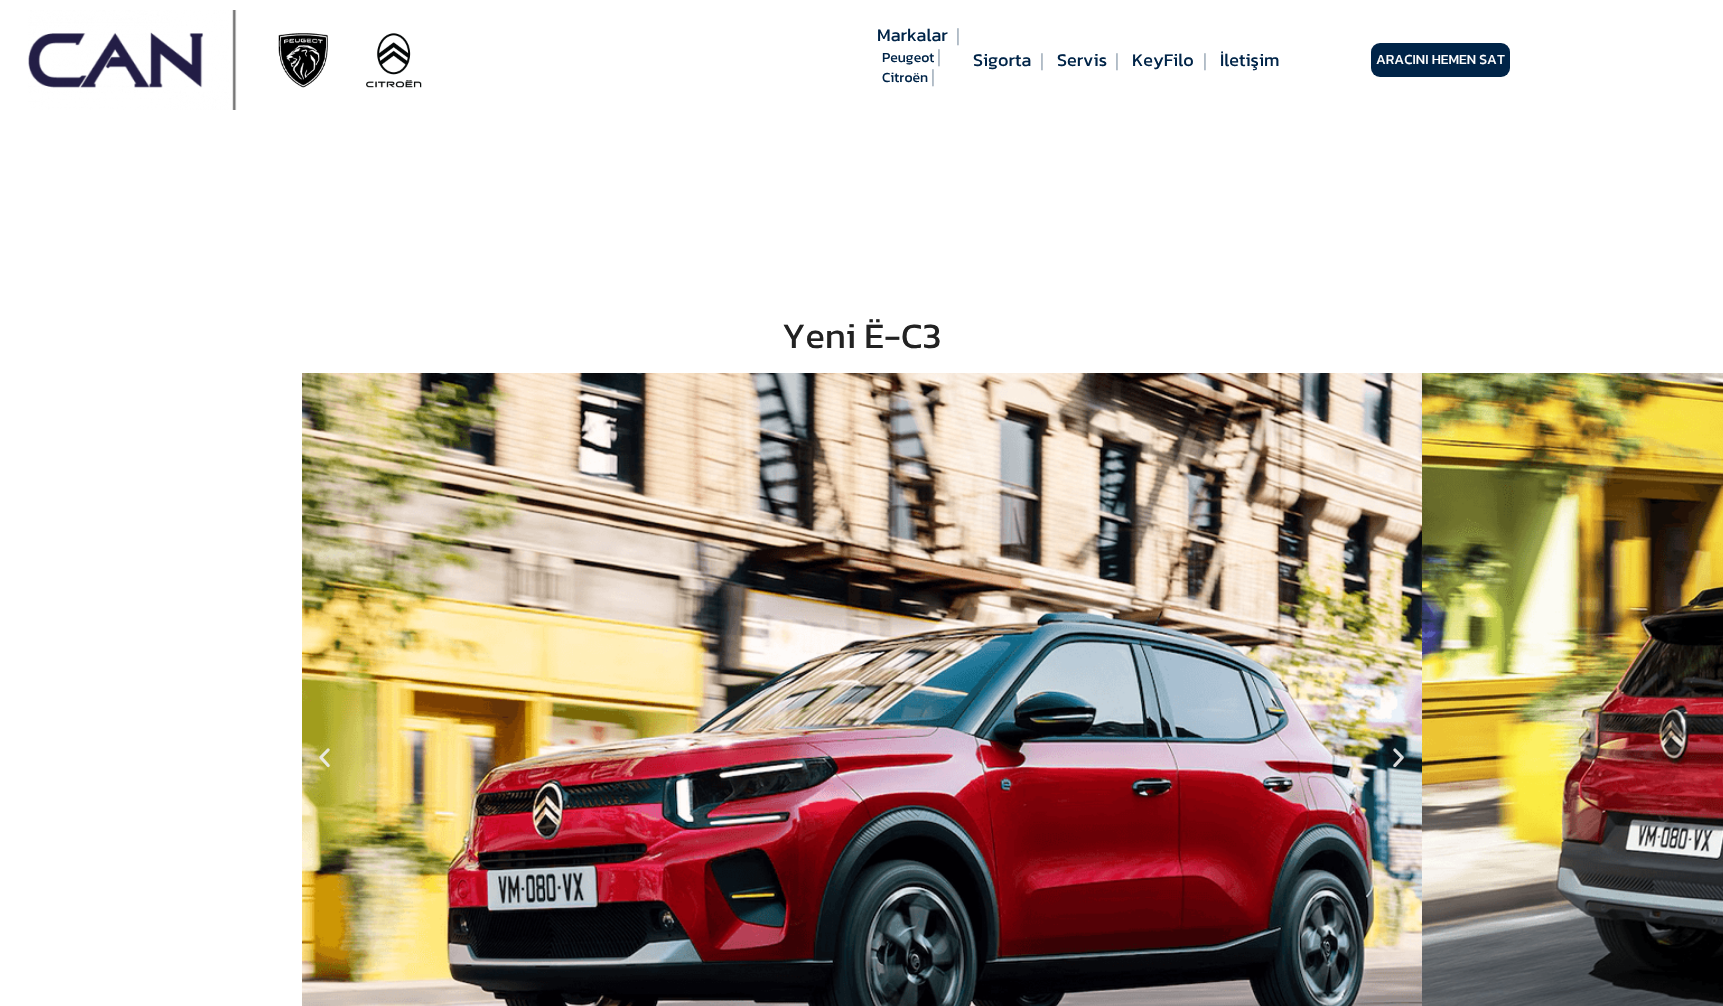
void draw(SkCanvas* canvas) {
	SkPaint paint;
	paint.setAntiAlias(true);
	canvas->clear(0xffffffff);
	canvas->drawImageRect(SkImages::DeferredFromEncodedData(SkData::MakeFromFileName("img1.png")), SkRect::MakeXYWH(28, 10, 209, 100), SkSamplingOptions());
	canvas->drawImageRect(SkImages::DeferredFromEncodedData(SkData::MakeFromFileName("img2.png")), SkRect::MakeXYWH(278, 33, 50, 55), SkSamplingOptions());
	canvas->drawImageRect(SkImages::DeferredFromEncodedData(SkData::MakeFromFileName("img3.png")), SkRect::MakeXYWH(366, 33, 56, 55), SkSamplingOptions());
	SkFont f1(fontMgr->matchFamilyStyle("Kanit", SkFontStyle::Normal()), 18);
	f1.setSubpixel(true);
	paint.setColor(0xff002448);
	canvas->drawString("Markalar", 877, 41, f1, paint);
	SkFont f2(fontMgr->matchFamilyStyle("Liberation Serif", SkFontStyle::Normal()), 14);
	f2.setSubpixel(true);
	paint.setColor(0xff8092a4);
	canvas->drawString("│", 953, 41, f2, paint);
	SkFont f3(fontMgr->matchFamilyStyle("Kanit", SkFontStyle::Normal()), 14);
	f3.setSubpixel(true);
	paint.setColor(0xff002448);
	canvas->drawString("Peugeot", 882, 62, f3, paint);
	paint.setColor(0xff8092a4);
	canvas->drawString("│", 934, 62, f2, paint);
	paint.setColor(0xff002448);
	canvas->drawString("Citroën", 882, 82, f3, paint);
	paint.setColor(0xff8092a4);
	canvas->drawString("│", 928, 82, f2, paint);
	paint.setColor(0xff002448);
	canvas->drawString("Sigorta", 973, 66, f1, paint);
	paint.setColor(0xff8092a4);
	canvas->drawString("│", 1037, 66, f2, paint);
	paint.setColor(0xff002448);
	canvas->drawString("Servis", 1057, 66, f1, paint);
	paint.setColor(0xff8092a4);
	canvas->drawString("│", 1112, 66, f2, paint);
	paint.setColor(0xff002448);
	canvas->drawString("KeyFilo", 1132, 66, f1, paint);
	paint.setColor(0xff8092a4);
	canvas->drawString("│", 1200, 66, f2, paint);
	paint.setColor(0xff002448);
	canvas->drawString("İletişim", 1220, 66, f1, paint);
	canvas->drawRoundRect(SkRect::MakeXYWH(1371, 43, 139, 34), 9, 9, paint);
	paint.setColor(0xffffffff);
	canvas->drawString("ARACINI HEMEN SAT", 1376, 64, f3, paint);
	SkFont f4(fontMgr->matchFamilyStyle("Kanit", SkFontStyle::Normal()), 36);
	f4.setSubpixel(true);
	paint.setColor(0xff222222);
	canvas->drawString("Yeni Ë-C3", 782, 348, f4, paint);
	canvas->drawImageRect(SkImages::DeferredFromEncodedData(SkData::MakeFromFileName("img4.png")), SkRect::MakeXYWH(302, 373, 1120, 633), SkSamplingOptions());
	canvas->drawImageRect(SkImages::DeferredFromEncodedData(SkData::MakeFromFileName("img5.png")), SkRect::MakeXYWH(1422, 373, 301, 633), SkSamplingOptions());
	canvas->drawImageRect(SkImages::DeferredFromEncodedData(SkData::MakeFromFileName("img6.png")), SkRect::MakeXYWH(319, 748, 11, 20), SkSamplingOptions());
	canvas->drawImageRect(SkImages::DeferredFromEncodedData(SkData::MakeFromFileName("img7.png")), SkRect::MakeXYWH(1393, 748, 11, 20), SkSamplingOptions());
}
